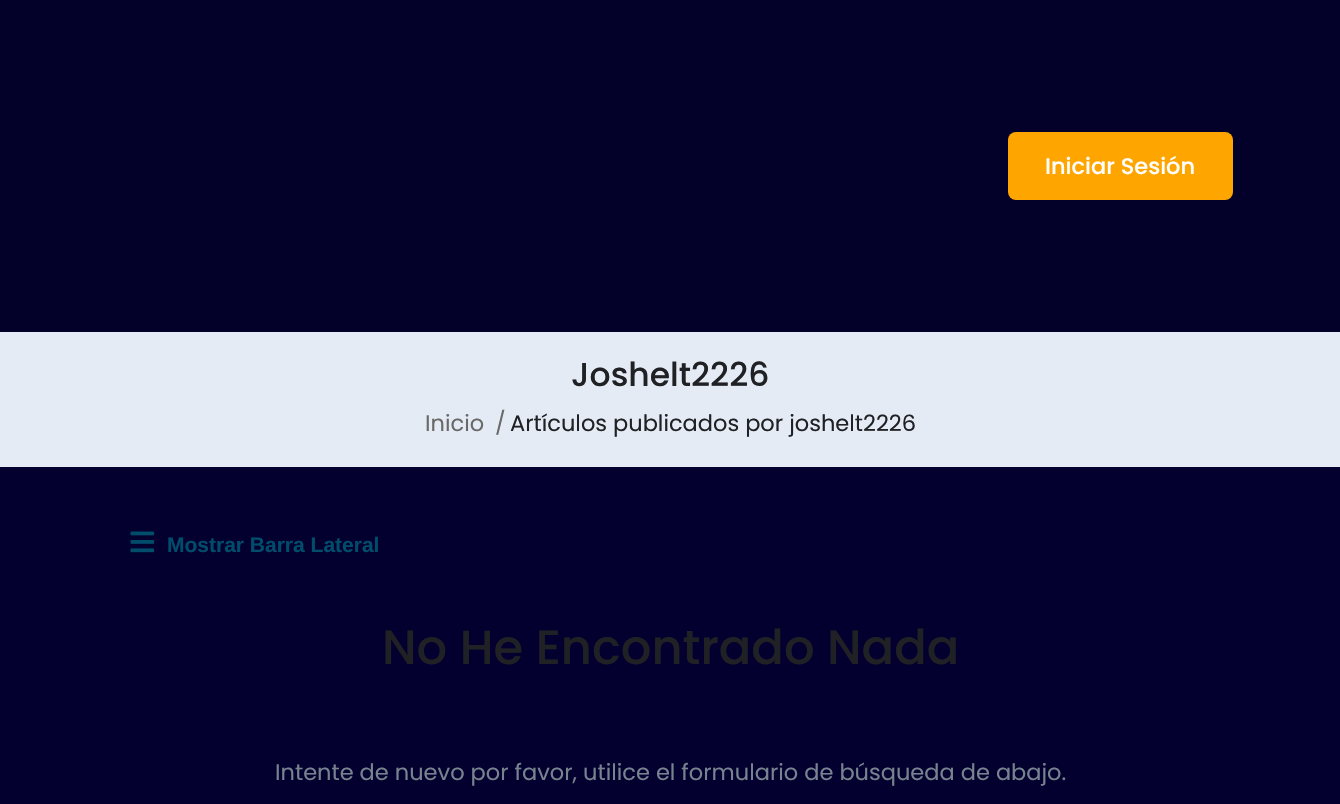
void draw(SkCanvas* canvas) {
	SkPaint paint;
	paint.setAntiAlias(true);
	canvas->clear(0xff03002f);
	paint.setColor(0xff03002a);
	canvas->drawRect(SkRect::MakeXYWH(0, 0, 1340, 332), paint);
	paint.setColor(0xffffa500);
	canvas->drawRoundRect(SkRect::MakeXYWH(1008, 132, 225, 68), 8, 8, paint);
	SkFont f1(fontMgr->matchFamilyStyle("Poppins", SkFontStyle(500, SkFontStyle::kNormal_Width, SkFontStyle::kUpright_Slant)), 22.5);
	f1.setSubpixel(true);
	paint.setColor(0xffffffff);
	canvas->drawString("Iniciar Sesión", 1045, 174, f1, paint);
	paint.setColor(0xffe5ebf5);
	canvas->drawRect(SkRect::MakeXYWH(0, 332, 1340, 135), paint);
	SkFont f2(fontMgr->matchFamilyStyle("Poppins", SkFontStyle(500, SkFontStyle::kNormal_Width, SkFontStyle::kUpright_Slant)), 33);
	f2.setSubpixel(true);
	paint.setColor(0xff202124);
	canvas->drawString("Joshelt2226", 571, 386, f2, paint);
	SkFont f3(fontMgr->matchFamilyStyle("Poppins", SkFontStyle::Normal()), 22.5);
	f3.setSubpixel(true);
	paint.setColor(0xff696969);
	canvas->drawString("Inicio", 425, 431, f3, paint);
	canvas->drawString("/", 495, 431, f3, paint);
	paint.setColor(0xff202124);
	canvas->drawString("Artículos publicados por joshelt2226", 510, 431, f3, paint);
	canvas->drawImageRect(SkImages::DeferredFromEncodedData(SkData::MakeFromFileName("img1.png")), SkRect::MakeXYWH(130, 531, 25, 22), SkSamplingOptions());
	SkFont f4(fontMgr->matchFamilyStyle("Liberation Sans", SkFontStyle::Bold()), 21);
	f4.setSubpixel(true);
	paint.setColor(0xff004c6b);
	canvas->drawString("Mostrar Barra Lateral", 167, 552, f4, paint);
	SkFont f5(fontMgr->matchFamilyStyle("Poppins", SkFontStyle(500, SkFontStyle::kNormal_Width, SkFontStyle::kUpright_Slant)), 48);
	f5.setSubpixel(true);
	paint.setColor(0xff202124);
	canvas->drawString("No He Encontrado Nada", 382, 664, f5, paint);
	paint.setColor(0xff77838f);
	canvas->drawString("Intente de nuevo por favor, utilice el formulario de búsqueda de abajo.", 275, 780, f3, paint);
}
